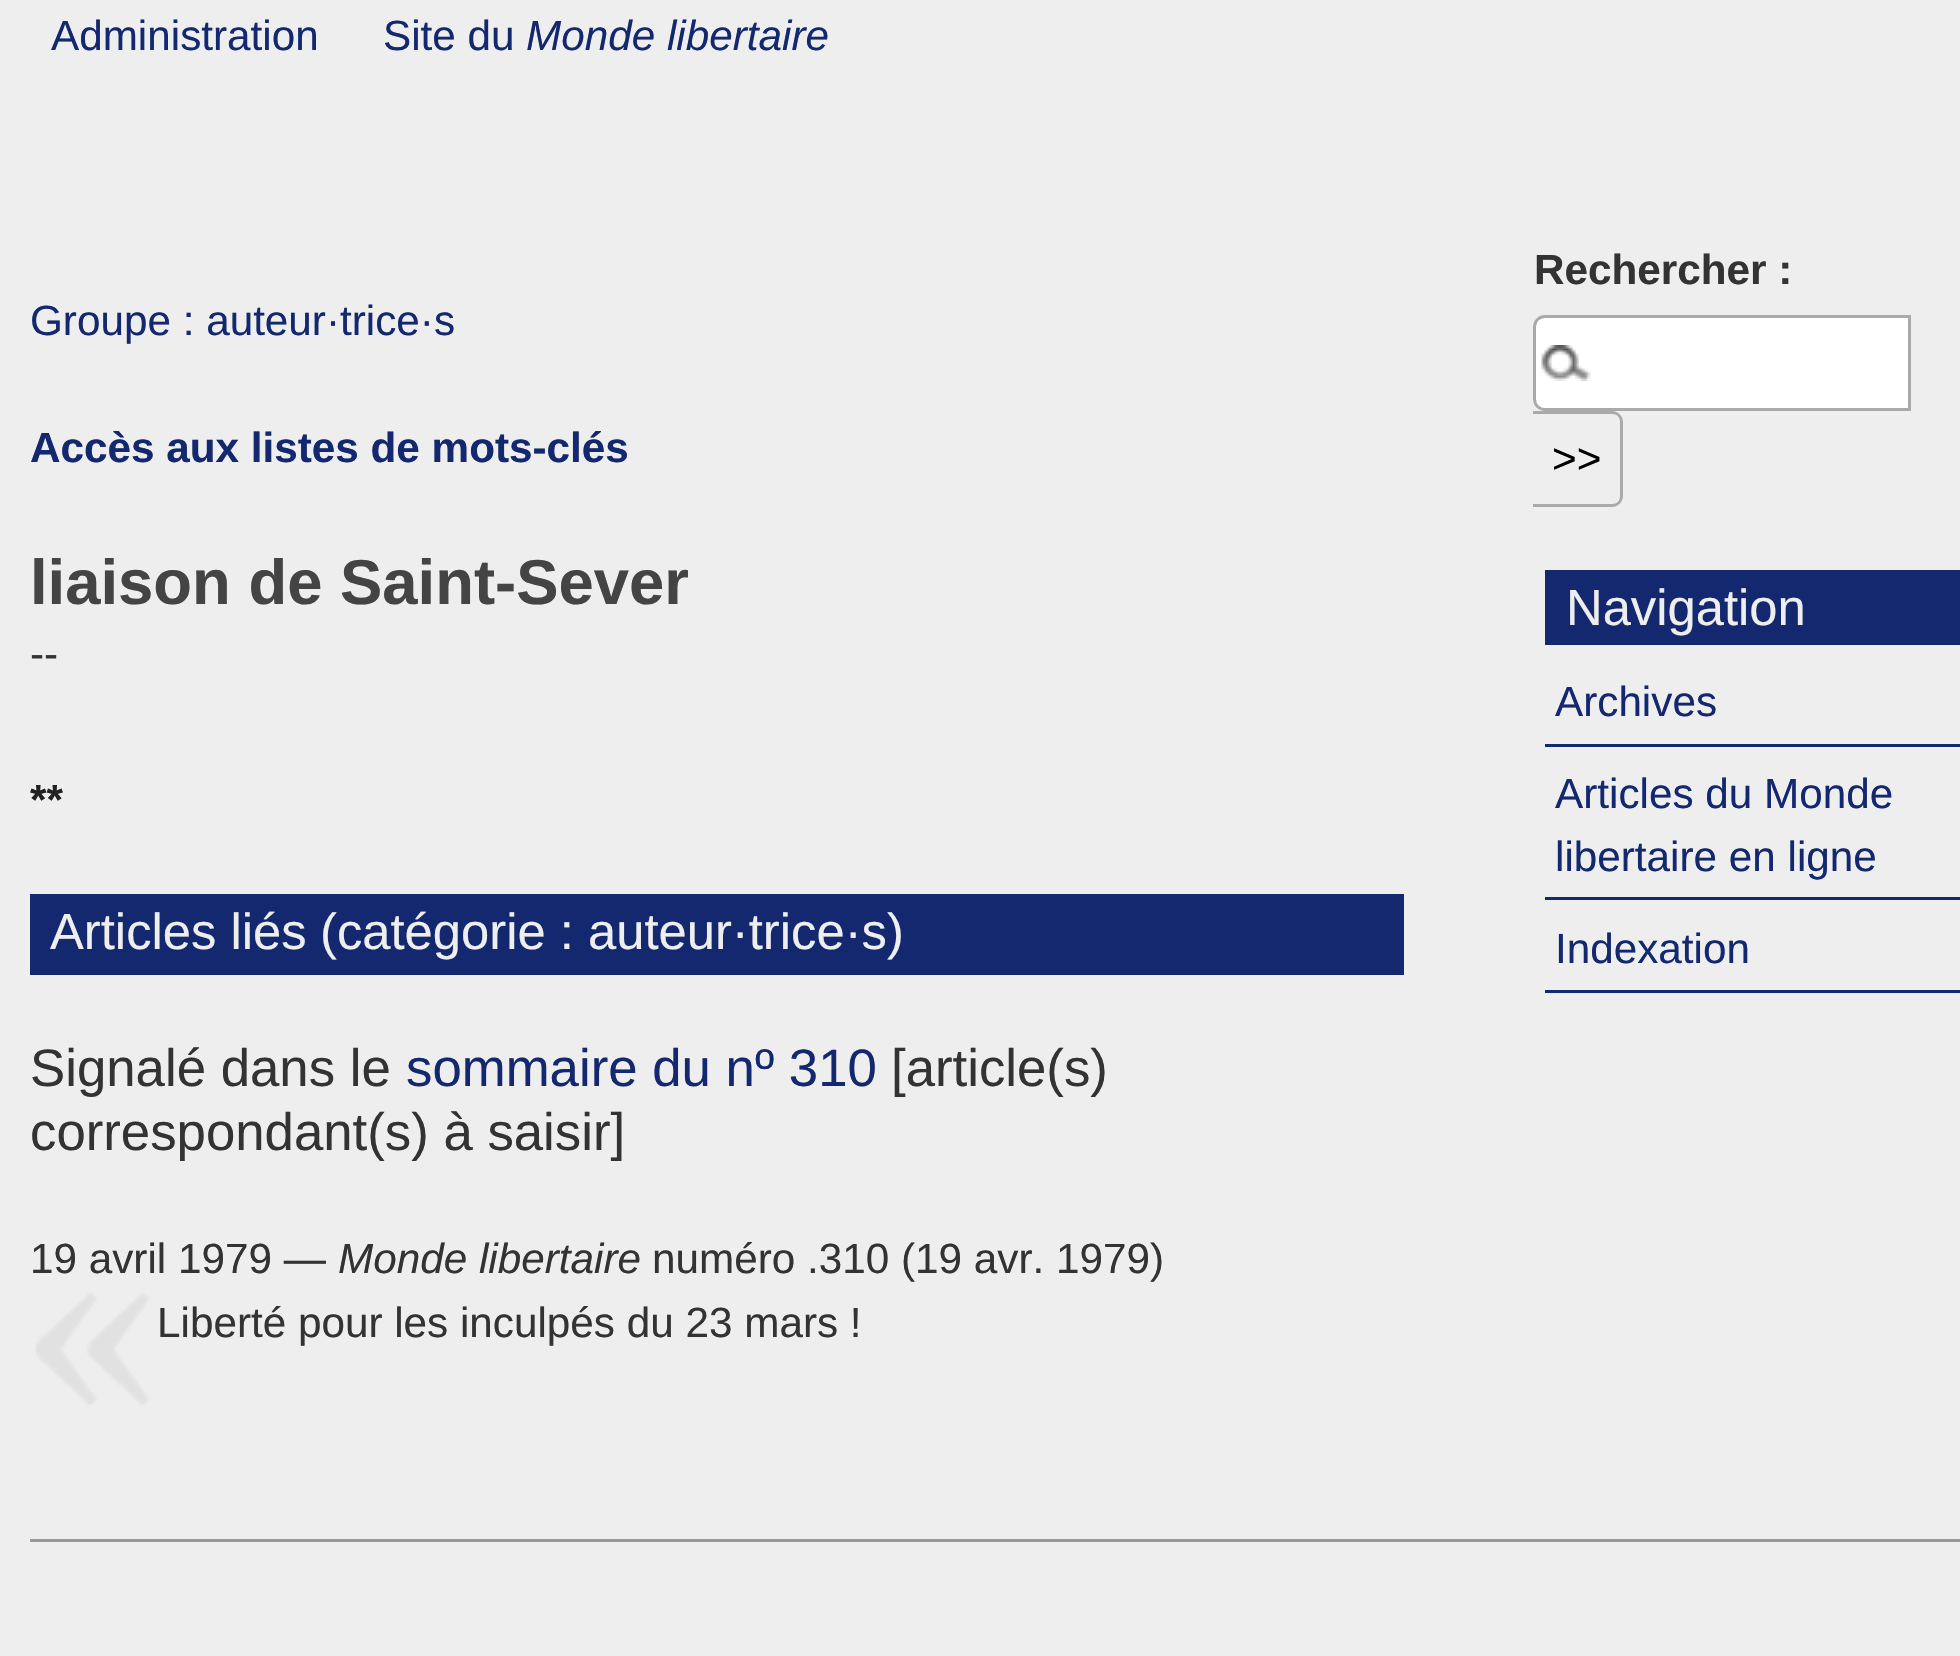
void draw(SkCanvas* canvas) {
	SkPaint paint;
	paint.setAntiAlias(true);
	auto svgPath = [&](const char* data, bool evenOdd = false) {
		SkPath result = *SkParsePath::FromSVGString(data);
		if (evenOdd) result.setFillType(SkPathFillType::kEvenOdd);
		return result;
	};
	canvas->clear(0xffeeeeee);
	SkFont f1(fontMgr->matchFamilyStyle("Liberation Sans", SkFontStyle::Normal()), 42.25);
	f1.setSubpixel(true);
	paint.setColor(0xff13286e);
	canvas->drawString("Administration", 51, 50, f1, paint);
	canvas->drawString("Site du", 383, 50, f1, paint);
	SkFont f2(fontMgr->matchFamilyStyle("Liberation Sans", SkFontStyle::Italic()), 42.25);
	f2.setSubpixel(true);
	canvas->drawString("Monde libertaire", 526, 50, f2, paint);
	canvas->drawString("Groupe : auteur·trice·s", 30, 335, f1, paint);
	SkFont f3(fontMgr->matchFamilyStyle("Liberation Sans", SkFontStyle::Bold()), 42.25);
	f3.setSubpixel(true);
	canvas->drawString("Accès aux listes de mots-clés", 30, 462, f3, paint);
	SkFont f4(fontMgr->matchFamilyStyle("Liberation Sans", SkFontStyle::Bold()), 63.4);
	f4.setSubpixel(true);
	paint.setColor(0xff444444);
	canvas->drawString("liaison de Saint-Sever", 30, 604, f4, paint);
	paint.setColor(0xff333333);
	canvas->drawString("--", 30, 668, f1, paint);
	paint.setColor(0xff222222);
	canvas->drawString("**", 30, 814, f3, paint);
	paint.setColor(0xff13286e);
	canvas->drawRect(SkRect::MakeXYWH(30, 894, 1374, 81), paint);
	SkFont f5(fontMgr->matchFamilyStyle("Liberation Sans", SkFontStyle::Normal()), 50.75);
	f5.setSubpixel(true);
	paint.setColor(0xffeeeeee);
	canvas->drawString("Articles liés", 50, 949, f5, paint);
	canvas->drawString("(catégorie : auteur·trice·s)", 320, 949, f5, paint);
	SkFont f6(fontMgr->matchFamilyStyle("Liberation Sans", SkFontStyle::Normal()), 52.75);
	f6.setSubpixel(true);
	paint.setColor(0xff333333);
	canvas->drawString("Signalé dans le", 30, 1086, f6, paint);
	paint.setColor(0xff13286e);
	canvas->drawString("sommaire du nº 310", 406, 1086, f6, paint);
	paint.setColor(0xff333333);
	canvas->drawString("[article(s)", 891, 1086, f6, paint);
	canvas->drawString("correspondant(s) à saisir]", 30, 1150, f6, paint);
	canvas->drawString("19 avril 1979 —", 30, 1273, f1, paint);
	canvas->drawString("Monde libertaire", 338, 1273, f2, paint);
	canvas->drawString("numéro .310 (19 avr. 1979)", 652, 1273, f1, paint);
	canvas->drawImageRect(SkImages::DeferredFromEncodedData(SkData::MakeFromFileName("img1.png")), SkRect::MakeXYWH(35, 1293, 115, 112), SkSamplingOptions());
	canvas->drawString("Liberté pour les inculpés du 23 mars !", 157, 1337, f1, paint);
	canvas->drawString("Rechercher :", 1534, 284, f3, paint);
	paint.setColor(0xffffffff);
	canvas->drawPath(svgPath("M1545 315H1911V411H1545C1538.5 411 1533 405.5 1533 399V327C1533 320.5 1538.5 315 1545 315Z"), paint);
	canvas->drawImageRect(SkImages::DeferredFromEncodedData(SkData::MakeFromFileName("img2.png")), SkRect::MakeXYWH(1541, 345, 50, 36), SkSamplingOptions());
	paint.setStroke(true);
	paint.setStrokeWidth(3);
	paint.setColor(0xffaaaaaa);
	canvas->drawPath(svgPath("M1545 316.5H1909.5V409.5H1545C1539 409.5 1534.5 405 1534.5 399V327C1534.5 321 1539 316.5 1545 316.5Z"), paint);
	paint.setStroke(false);
	canvas->drawPath(svgPath("M1533 411H1612C1618 411 1623 416 1623 422V496C1623 502 1618 507 1612 507H1533ZM1533 414H1612C1617 414 1620 417 1620 422V496C1620 501 1617 504 1612 504H1533Z", true), paint);
	paint.setColor(0xff000000);
	canvas->drawString(">>", 1552, 473, f1, paint);
	paint.setColor(0xff13286e);
	canvas->drawRect(SkRect::MakeXYWH(1545, 570, 415, 75), paint);
	paint.setColor(0xffeeeeee);
	canvas->drawString("Navigation", 1566, 625, f5, paint);
	paint.setColor(0xff13286e);
	canvas->drawRect(SkRect::MakeXYWH(1545, 744, 415, 3), paint);
	canvas->drawString("Archives", 1555, 716, f1, paint);
	canvas->drawRect(SkRect::MakeXYWH(1545, 897, 415, 3), paint);
	canvas->drawString("Articles du Monde", 1555, 808, f1, paint);
	canvas->drawString("libertaire en ligne", 1555, 871, f1, paint);
	canvas->drawRect(SkRect::MakeXYWH(1545, 990, 415, 3), paint);
	canvas->drawString("Indexation", 1555, 963, f1, paint);
	paint.setColor(0xff999999);
	canvas->drawRect(SkRect::MakeXYWH(30, 1539, 1930, 3), paint);
}
